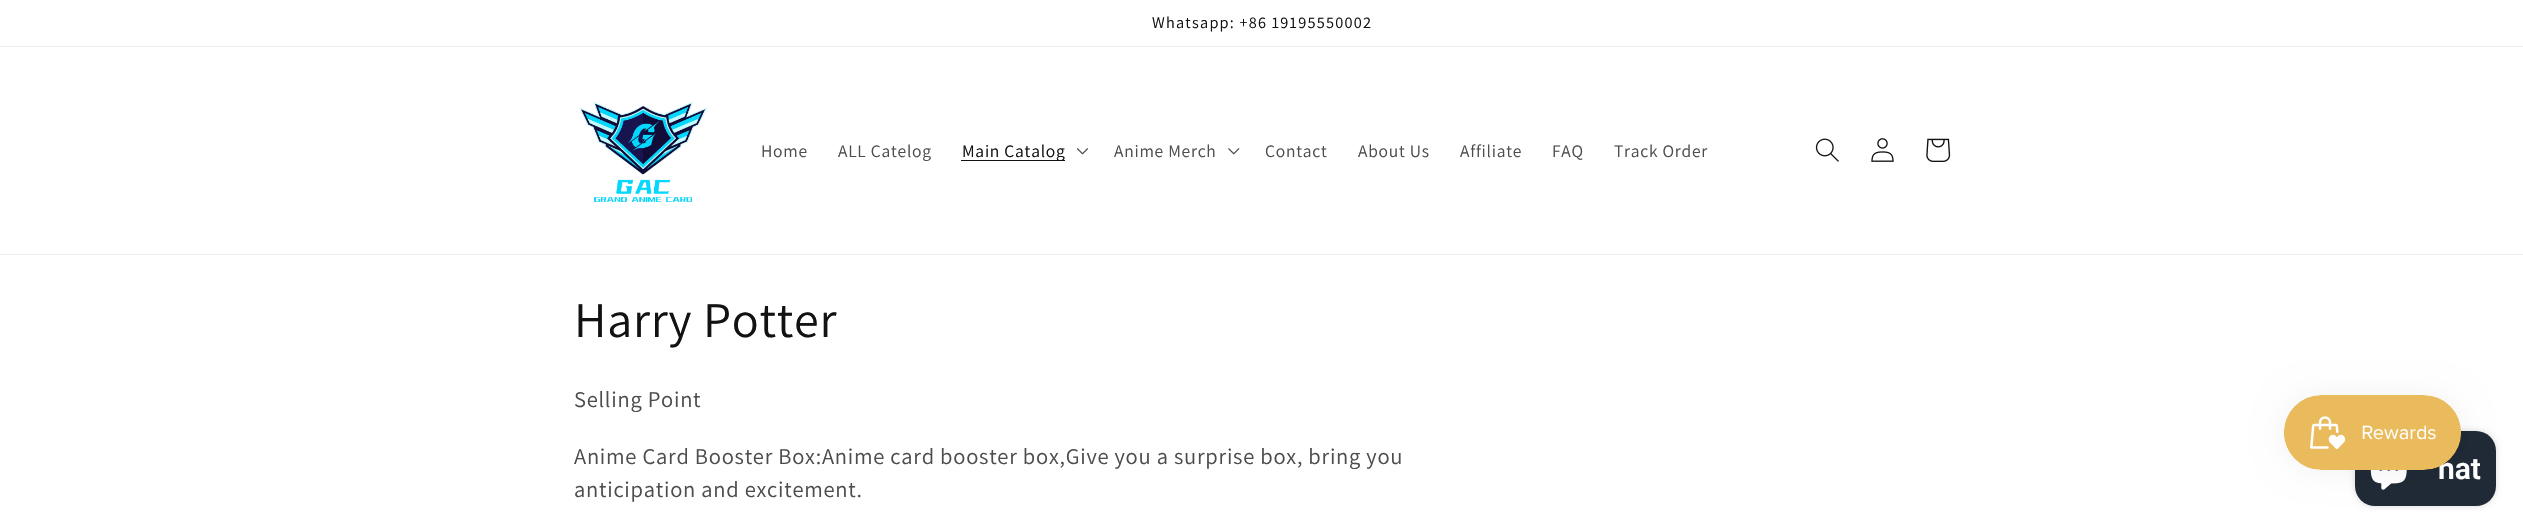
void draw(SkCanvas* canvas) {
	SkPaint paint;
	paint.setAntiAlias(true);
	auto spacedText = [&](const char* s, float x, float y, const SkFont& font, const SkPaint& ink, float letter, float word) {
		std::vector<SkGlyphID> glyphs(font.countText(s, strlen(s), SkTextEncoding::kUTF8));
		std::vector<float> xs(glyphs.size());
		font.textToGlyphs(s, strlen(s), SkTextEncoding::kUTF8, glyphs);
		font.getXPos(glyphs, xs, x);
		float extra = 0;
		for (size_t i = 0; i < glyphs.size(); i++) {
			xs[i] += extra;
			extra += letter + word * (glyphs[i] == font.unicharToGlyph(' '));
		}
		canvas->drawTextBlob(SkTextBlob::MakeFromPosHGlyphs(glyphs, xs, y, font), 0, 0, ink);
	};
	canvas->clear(0xffffffff);
	paint.setColor(0xffececec);
	canvas->drawRect(SkRect::MakeXYWH(0, 46, 2523, 1), paint);
	SkFont f1(fontMgr->matchFamilyStyle("Assistant", SkFontStyle::Normal()), 16.25);
	f1.setSubpixel(true);
	paint.setColor(0xff121212);
	spacedText("Whatsapp: +86 19195550002", 1152, 28, f1, paint, 1.25, 0);
	paint.setColor(0xffececec);
	canvas->drawRect(SkRect::MakeXYWH(0, 254, 2523, 1), paint);
	canvas->drawImageRect(SkImages::DeferredFromEncodedData(SkData::MakeFromFileName("img1.png")), SkRect::MakeXYWH(579, 101, 129, 101), SkSamplingOptions());
	SkFont f2(fontMgr->matchFamilyStyle("Assistant", SkFontStyle::Normal()), 17.5);
	f2.setSubpixel(true);
	paint.setColor(0xff4d4d4d);
	spacedText("Home", 761, 157, f2, paint, 0.75, 0);
	spacedText("ALL Catelog", 838, 157, f2, paint, 0.75, 0);
	paint.setColor(0xff121212);
	canvas->drawRect(SkRect::MakeXYWH(961, 160, 104, 1), paint);
	spacedText("Main Catalog", 962, 157, f2, paint, 0.75, 0);
	canvas->drawImageRect(SkImages::DeferredFromEncodedData(SkData::MakeFromFileName("img2.png")), SkRect::MakeXYWH(1076, 148, 13, 7), SkSamplingOptions());
	paint.setColor(0xff4d4d4d);
	spacedText("Anime Merch", 1114, 157, f2, paint, 0.75, 0);
	canvas->drawImageRect(SkImages::DeferredFromEncodedData(SkData::MakeFromFileName("img3.png")), SkRect::MakeXYWH(1228, 148, 12, 7), SkSamplingOptions());
	spacedText("Contact", 1265, 157, f2, paint, 0.75, 0);
	spacedText("About Us", 1358, 157, f2, paint, 0.75, 0);
	spacedText("Affiliate", 1460, 157, f2, paint, 0.75, 0);
	spacedText("FAQ", 1552, 157, f2, paint, 0.75, 0);
	spacedText("Track Order", 1614, 157, f2, paint, 0.75, 0);
	canvas->drawImageRect(SkImages::DeferredFromEncodedData(SkData::MakeFromFileName("img4.png")), SkRect::MakeXYWH(1815, 138, 24, 24), SkSamplingOptions());
	canvas->drawImageRect(SkImages::DeferredFromEncodedData(SkData::MakeFromFileName("img5.png")), SkRect::MakeXYWH(1871, 138, 23, 24), SkSamplingOptions());
	canvas->drawImageRect(SkImages::DeferredFromEncodedData(SkData::MakeFromFileName("img6.png")), SkRect::MakeXYWH(1926, 138, 25, 24), SkSamplingOptions());
	SkFont f3(fontMgr->matchFamilyStyle("Assistant", SkFontStyle::Normal()), 50);
	f3.setSubpixel(true);
	paint.setColor(0xff121212);
	spacedText("Harry Potter", 574, 337, f3, paint, 0.75, 0);
	SkFont f4(fontMgr->matchFamilyStyle("Assistant", SkFontStyle::Normal()), 22.5);
	f4.setSubpixel(true);
	paint.setColor(0xff4d4d4d);
	spacedText("Selling Point", 574, 407, f4, paint, 0.75, 0);
	spacedText("Anime Card Booster Box:Anime card booster box,Give you a surprise box, bring you", 574, 464, f4, paint, 0.75, 0);
	spacedText("anticipation and excitement.", 574, 497, f4, paint, 0.75, 0);
	paint.setColor(0x26000000);
	paint.setMaskFilter(SkMaskFilter::MakeBlur(kNormal_SkBlurStyle, 3));
	canvas->drawRoundRect(SkRect::MakeXYWH(2355, 431, 141, 75), 20, 20, paint);
	paint.setMaskFilter(nullptr);
	paint.setColor(0xff202a36);
	canvas->drawRoundRect(SkRect::MakeXYWH(2355, 431, 141, 75), 20, 20, paint);
	canvas->drawImageRect(SkImages::DeferredFromEncodedData(SkData::MakeFromFileName("img8.png")), SkRect::MakeXYWH(2370, 470, 37, 20), SkSamplingOptions());
	paint.setColor(0x0d000000);
	paint.setMaskFilter(SkMaskFilter::MakeBlur(kNormal_SkBlurStyle, 15.5));
	canvas->drawRoundRect(SkRect::MakeXYWH(2284, 395, 177, 75), 37.5, 37.5, paint);
	paint.setMaskFilter(nullptr);
	SkFont f5(fontMgr->matchFamilyStyle("Roboto", SkFontStyle(600, SkFontStyle::kNormal_Width, SkFontStyle::kUpright_Slant)), 30);
	f5.setSubpixel(true);
	paint.setColor(0xffffffff);
	canvas->drawString("hat", 2438, 479, f5, paint);
	canvas->drawImageRect(SkImages::DeferredFromEncodedData(SkData::MakeFromFileName("img7.png")), SkRect::MakeXYWH(2284, 395, 177, 75), SkSamplingOptions());
}
